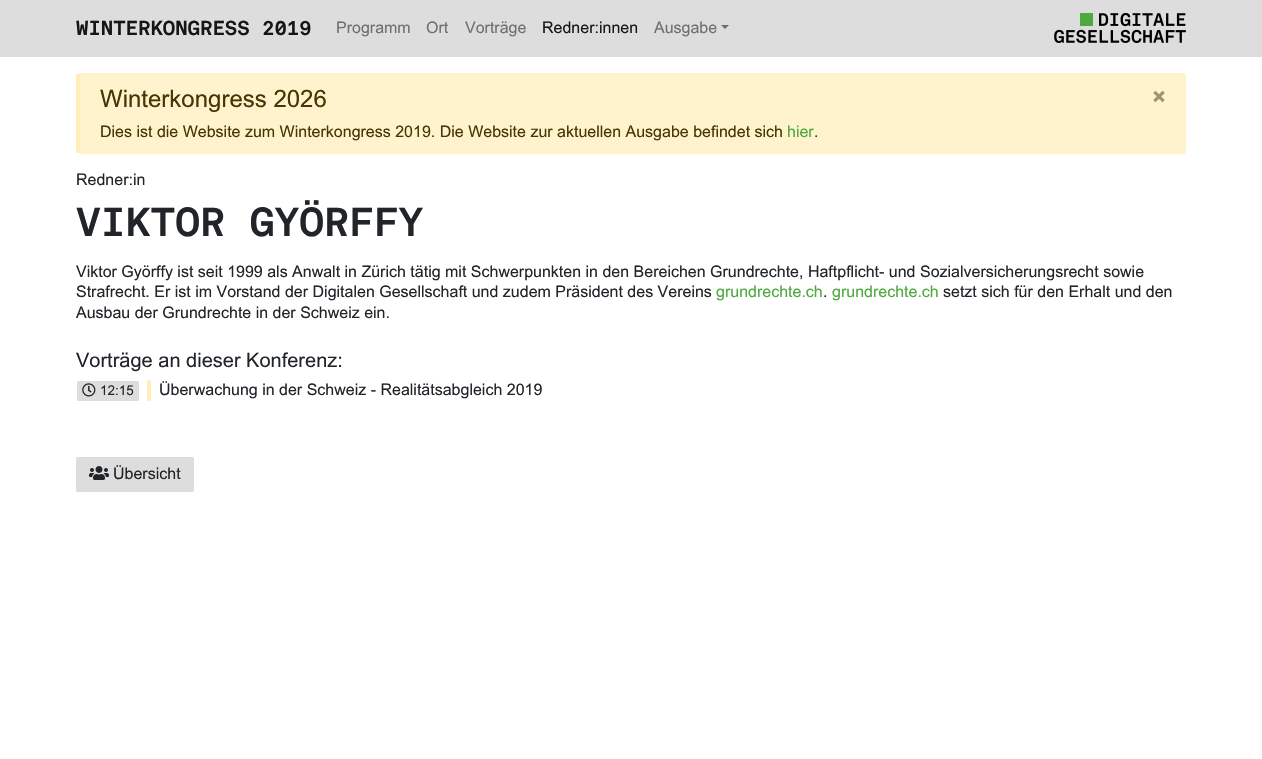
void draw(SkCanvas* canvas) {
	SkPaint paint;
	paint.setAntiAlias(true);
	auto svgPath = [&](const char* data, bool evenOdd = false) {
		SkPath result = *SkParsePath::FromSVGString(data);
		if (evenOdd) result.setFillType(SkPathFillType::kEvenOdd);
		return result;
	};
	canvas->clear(0xffffffff);
	paint.setColor(0xffdddddd);
	canvas->drawRect(SkRect::MakeXYWH(0, 0, 1262, 57), paint);
	SkFont f1(fontMgr->matchFamilyStyle("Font", SkFontStyle::Bold()), 20);
	f1.setSubpixel(true);
	paint.setColor(0xff161616);
	canvas->drawString("WINTERKONGRESS 2019", 76, 35, f1, paint);
	SkFont f2(fontMgr->matchFamilyStyle("Arial", SkFontStyle::Normal()), 16);
	f2.setSubpixel(true);
	paint.setColor(0xff6f6f6f);
	canvas->drawString("Programm", 336, 33, f2, paint);
	canvas->drawString("Ort", 426, 33, f2, paint);
	canvas->drawString("Vorträge", 465, 33, f2, paint);
	paint.setColor(0xff161616);
	canvas->drawString("Redner:innen", 542, 33, f2, paint);
	paint.setColor(0xff6f6f6f);
	canvas->drawString("Ausgabe", 654, 33, f2, paint);
	canvas->drawPath(svgPath("M721 25H729L725 29Z"), paint);
	canvas->drawImageRect(SkImages::DeferredFromEncodedData(SkData::MakeFromFileName("img1.png")), SkRect::MakeXYWH(1054, 13, 132, 30), SkSamplingOptions());
	paint.setColor(0xfffff3cd);
	canvas->drawPath(svgPath("M80 73H1184C1185 73 1186 74 1186 75V152C1186 153 1185 154 1184 154H80Z"), paint);
	paint.setColor(0xffffeeba);
	canvas->drawRect(SkRect::MakeXYWH(76, 74, 4, 79), paint);
	SkFont f3(fontMgr->matchFamilyStyle("Arial", SkFontStyle::Normal()), 24);
	f3.setSubpixel(true);
	paint.setColor(0xff473602);
	canvas->drawString("Winterkongress 2026", 100, 107, f3, paint);
	SkFont f4(fontMgr->matchFamilyStyle("Arial", SkFontStyle::Bold()), 24);
	f4.setSubpixel(true);
	paint.setColor(0xffa39568);
	canvas->drawString("×", 1152, 105, f4, paint);
	paint.setColor(0xff473602);
	canvas->drawString("Dies ist die Website zum Winterkongress 2019. Die Website zur aktuellen Ausgabe befindet sich", 100, 137, f2, paint);
	paint.setColor(0xff4ea93f);
	canvas->drawString("hier", 787, 137, f2, paint);
	paint.setColor(0xff473602);
	canvas->drawString(".", 814, 137, f2, paint);
	paint.setColor(0xff212529);
	canvas->drawString("Redner:in", 76, 185, f2, paint);
	SkFont f5(fontMgr->matchFamilyStyle("Font", SkFontStyle::Bold()), 40);
	f5.setSubpixel(true);
	canvas->drawString("VIKTOR GYÖRFFY", 76, 236, f5, paint);
	canvas->drawString("Viktor Györffy ist seit 1999 als Anwalt in Zürich tätig mit Schwerpunkten in den Bereichen Grundrechte, Haftpflicht- und Sozialversicherungsrecht sowie", 76, 277, f2, paint);
	canvas->drawString("Strafrecht. Er ist im Vorstand der Digitalen Gesellschaft und zudem Präsident des Vereins", 76, 297, f2, paint);
	paint.setColor(0xff4ea93f);
	canvas->drawString("grundrechte.ch", 716, 297, f2, paint);
	paint.setColor(0xff212529);
	canvas->drawString(".", 823, 297, f2, paint);
	paint.setColor(0xff4ea93f);
	canvas->drawString("grundrechte.ch", 832, 297, f2, paint);
	paint.setColor(0xff212529);
	canvas->drawString("setzt sich für den Erhalt und den", 943, 297, f2, paint);
	canvas->drawString("Ausbau der Grundrechte in der Schweiz ein.", 76, 318, f2, paint);
	SkFont f6(fontMgr->matchFamilyStyle("Arial", SkFontStyle::Normal()), 20);
	f6.setSubpixel(true);
	canvas->drawString("Vorträge an dieser Konferenz:", 76, 367, f6, paint);
	paint.setColor(0xffdddddd);
	canvas->drawRoundRect(SkRect::MakeXYWH(77, 381, 62, 20), 1.5, 1.5, paint);
	canvas->drawImageRect(SkImages::DeferredFromEncodedData(SkData::MakeFromFileName("img2.png")), SkRect::MakeXYWH(82, 383, 14, 14), SkSamplingOptions());
	SkFont f7(fontMgr->matchFamilyStyle("Arial", SkFontStyle::Normal()), 13.5);
	f7.setSubpixel(true);
	paint.setColor(0xff212529);
	canvas->drawString("12:15", 100, 395, f7, paint);
	paint.setColor(0xffffeeba);
	canvas->drawRect(SkRect::MakeXYWH(147, 380, 4, 21), paint);
	paint.setColor(0xff212529);
	canvas->drawString("Überwachung in der Schweiz - Realitätsabgleich 2019", 159, 395, f2, paint);
	paint.setColor(0xffdddddd);
	canvas->drawRoundRect(SkRect::MakeXYWH(76.5, 457.5, 117, 34), 1, 1, paint);
	paint.setStroke(true);
	paint.setStrokeWidth(1);
	canvas->drawRoundRect(SkRect::MakeXYWH(76.5, 457.5, 117, 34), 1, 1, paint);
	canvas->drawImageRect(SkImages::DeferredFromEncodedData(SkData::MakeFromFileName("img3.png")), SkRect::MakeXYWH(89, 466, 20, 14), SkSamplingOptions());
	paint.setStroke(false);
	paint.setColor(0xff212529);
	canvas->drawString("Übersicht", 113, 479, f2, paint);
}
